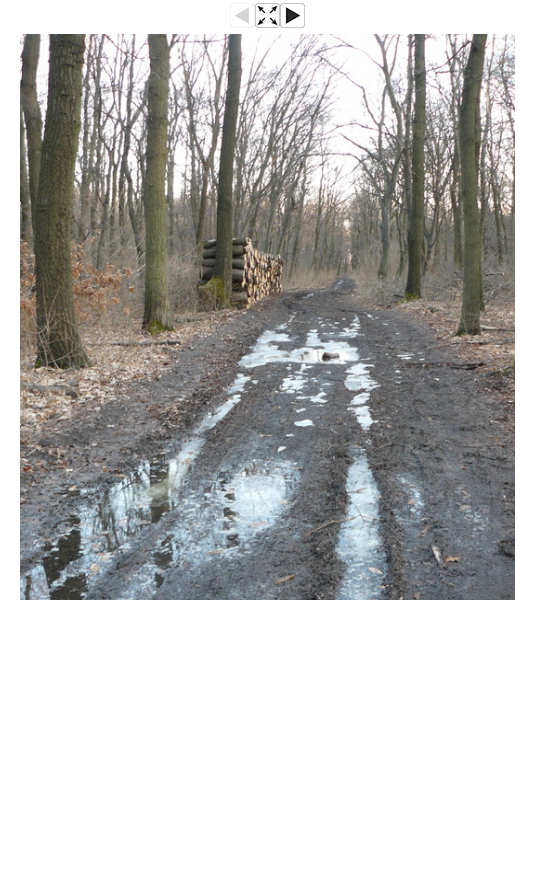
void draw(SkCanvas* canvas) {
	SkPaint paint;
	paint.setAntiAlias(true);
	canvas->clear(0xffffffff);
	canvas->drawImageRect(SkImages::DeferredFromEncodedData(SkData::MakeFromFileName("img1.png")), SkRect::MakeXYWH(230, 3, 25, 25), SkSamplingOptions());
	canvas->drawImageRect(SkImages::DeferredFromEncodedData(SkData::MakeFromFileName("img2.png")), SkRect::MakeXYWH(255, 3, 25, 25), SkSamplingOptions());
	canvas->drawImageRect(SkImages::DeferredFromEncodedData(SkData::MakeFromFileName("img3.png")), SkRect::MakeXYWH(280, 3, 25, 25), SkSamplingOptions());
	canvas->drawImageRect(SkImages::DeferredFromEncodedData(SkData::MakeFromFileName("img4.png")), SkRect::MakeXYWH(20, 34, 495, 566), SkSamplingOptions());
}
